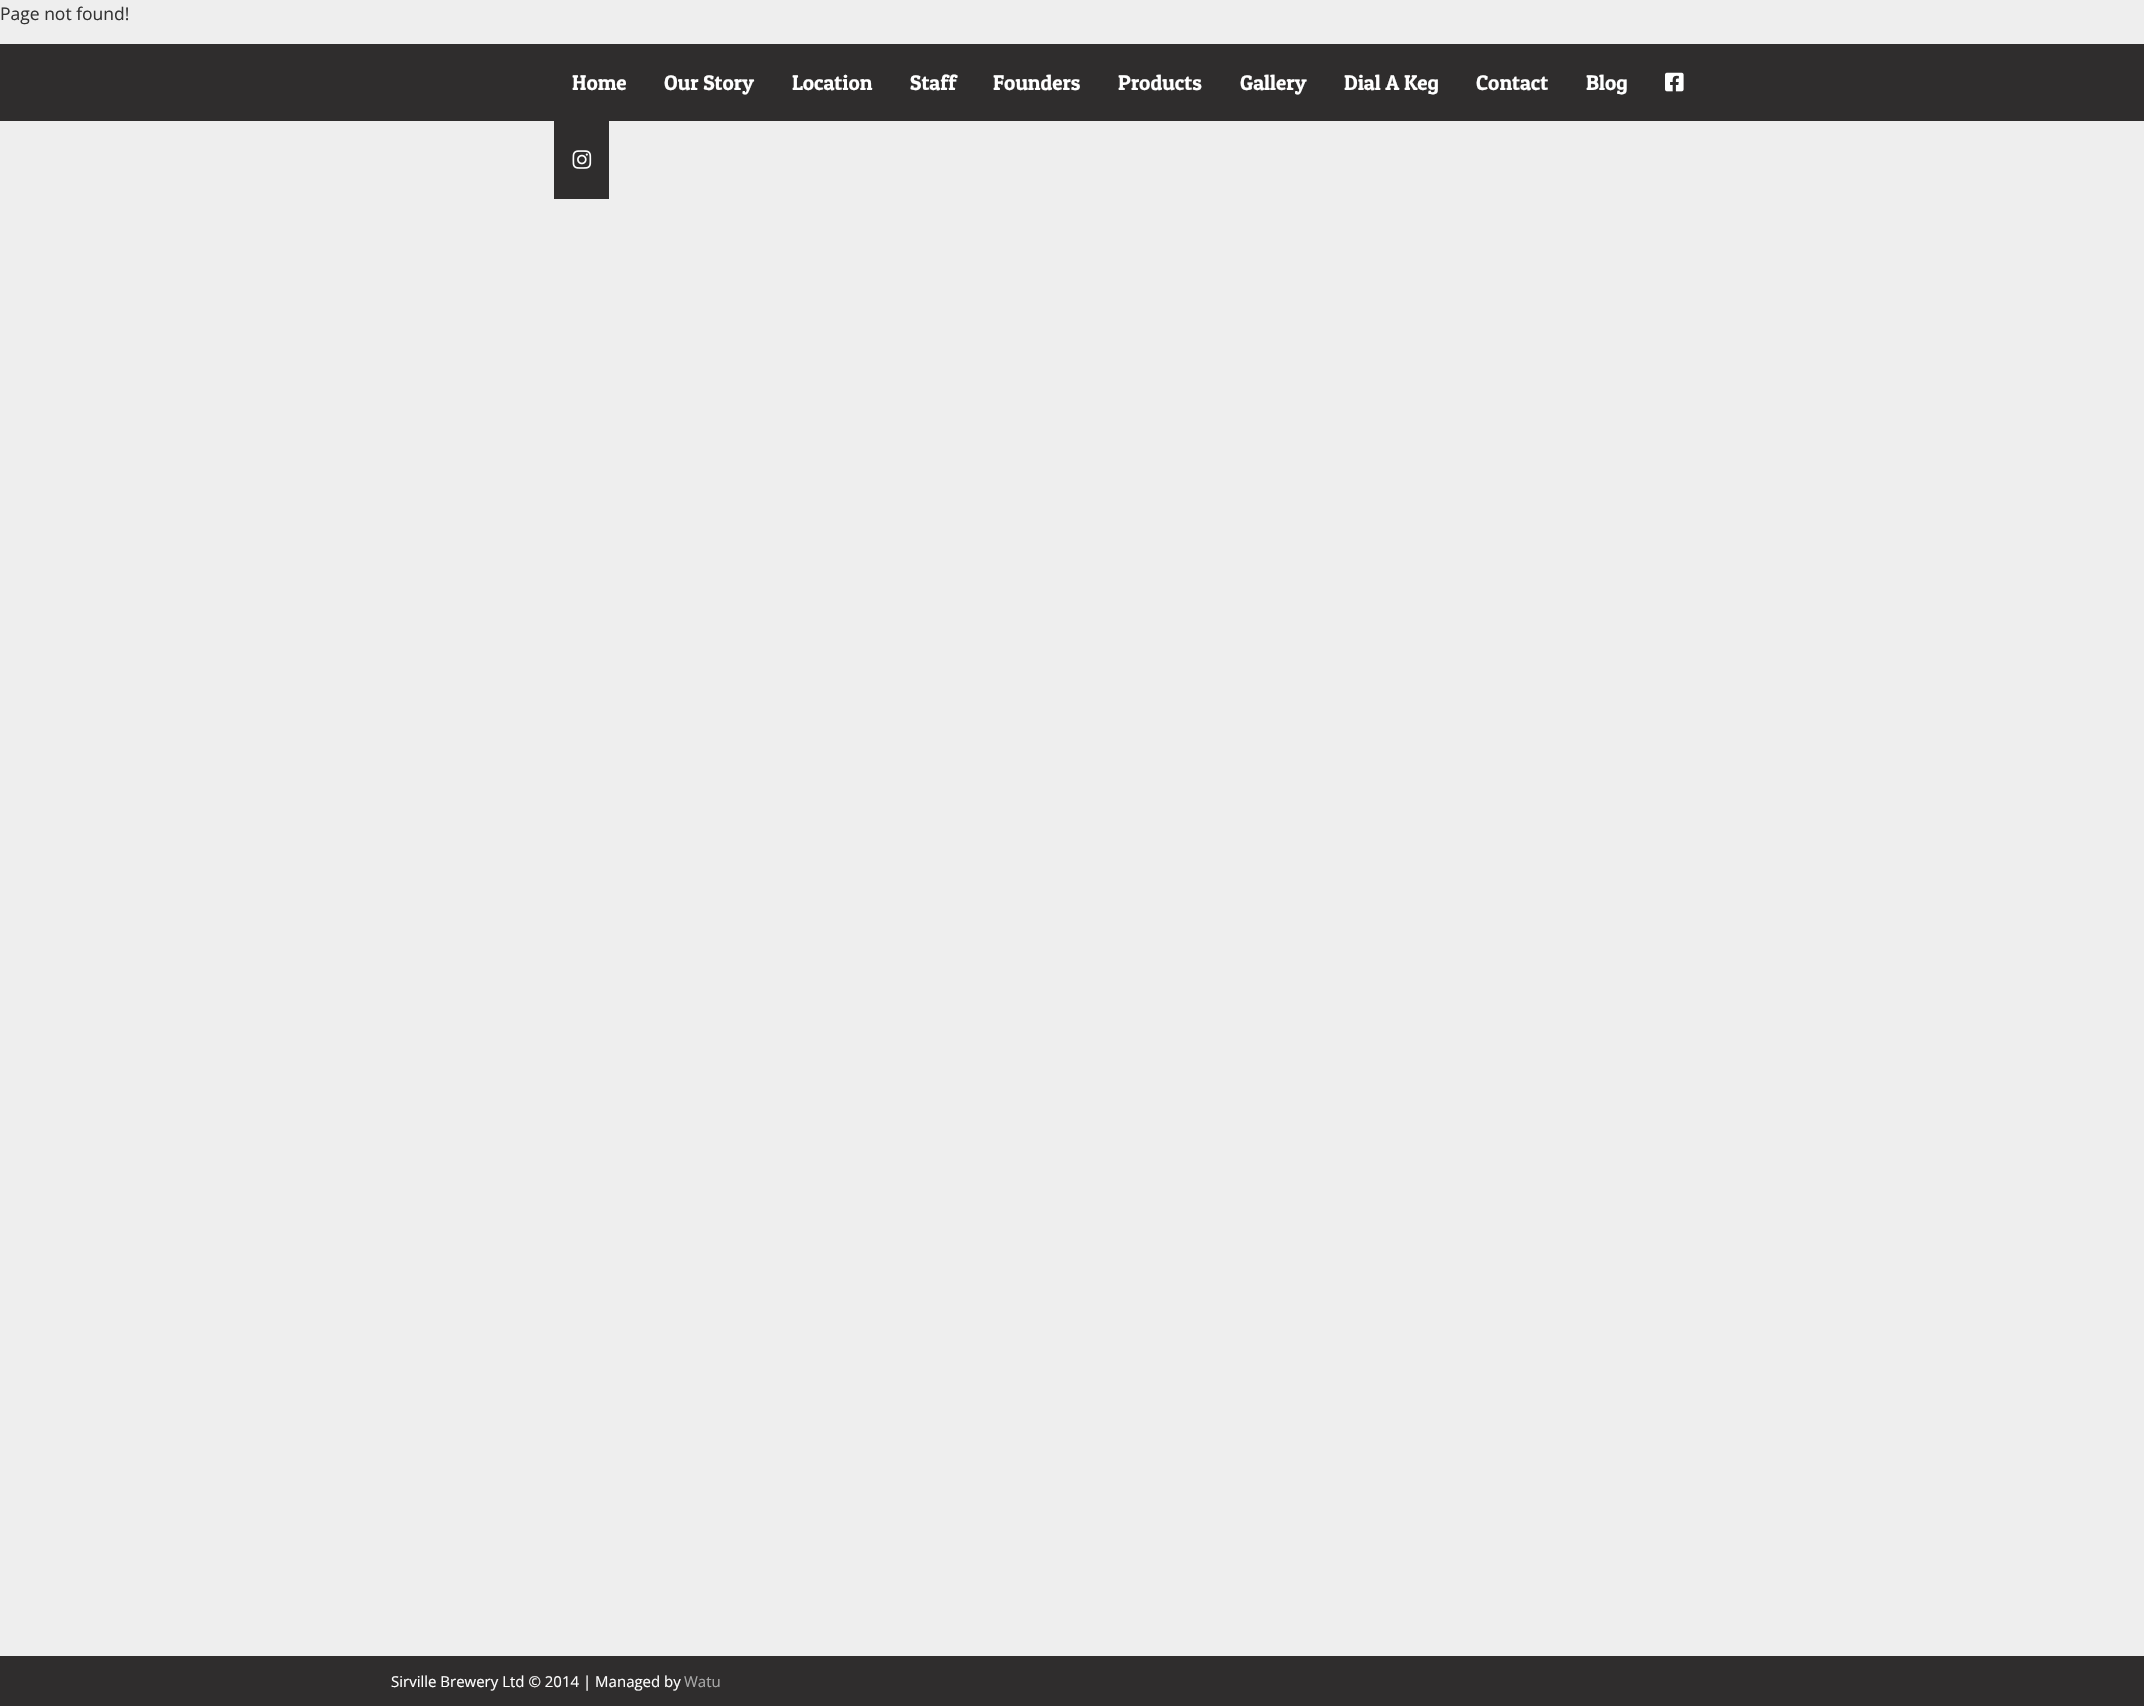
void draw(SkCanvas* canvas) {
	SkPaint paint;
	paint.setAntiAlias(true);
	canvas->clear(0xffeeeeee);
	SkFont f1(fontMgr->matchFamilyStyle("Open Sans", SkFontStyle::Normal()), 17.5);
	f1.setSubpixel(true);
	paint.setColor(0xff333333);
	canvas->drawString("Page not found!", 0, 20, f1, paint);
	paint.setColor(0xff2f2d2d);
	canvas->drawRect(SkRect::MakeXYWH(0, 44, 2144, 77), paint);
	SkFont f2(fontMgr->matchFamilyStyle("Patua One", SkFontStyle::Normal()), 21.25);
	f2.setSubpixel(true);
	paint.setColor(0xffffffff);
	canvas->drawString("Home", 572, 90, f2, paint);
	canvas->drawString("Our Story", 664, 90, f2, paint);
	canvas->drawString("Location", 792, 90, f2, paint);
	canvas->drawString("Staff", 910, 90, f2, paint);
	canvas->drawString("Founders", 993, 90, f2, paint);
	canvas->drawString("Products", 1118, 90, f2, paint);
	canvas->drawString("Gallery", 1240, 90, f2, paint);
	canvas->drawString("Dial A Keg", 1344, 90, f2, paint);
	canvas->drawString("Contact", 1476, 90, f2, paint);
	canvas->drawString("Blog", 1586, 90, f2, paint);
	canvas->drawImageRect(SkImages::DeferredFromEncodedData(SkData::MakeFromFileName("img1.png")), SkRect::MakeXYWH(1665, 72, 19, 20), SkSamplingOptions());
	paint.setColor(0xff2f2d2d);
	canvas->drawRect(SkRect::MakeXYWH(554, 121, 55, 78), paint);
	canvas->drawImageRect(SkImages::DeferredFromEncodedData(SkData::MakeFromFileName("img2.png")), SkRect::MakeXYWH(572, 150, 20, 19), SkSamplingOptions());
	canvas->drawRect(SkRect::MakeXYWH(0, 1656, 2144, 50), paint);
	SkFont f3(fontMgr->matchFamilyStyle("Open Sans", SkFontStyle::Normal()), 15);
	f3.setSubpixel(true);
	paint.setColor(0xffffffff);
	canvas->drawString("Sirville Brewery Ltd © 2014 | Managed by", 391, 1687, f3, paint);
	paint.setColor(0xffa9a9a9);
	canvas->drawString("Watu", 684, 1687, f3, paint);
}
